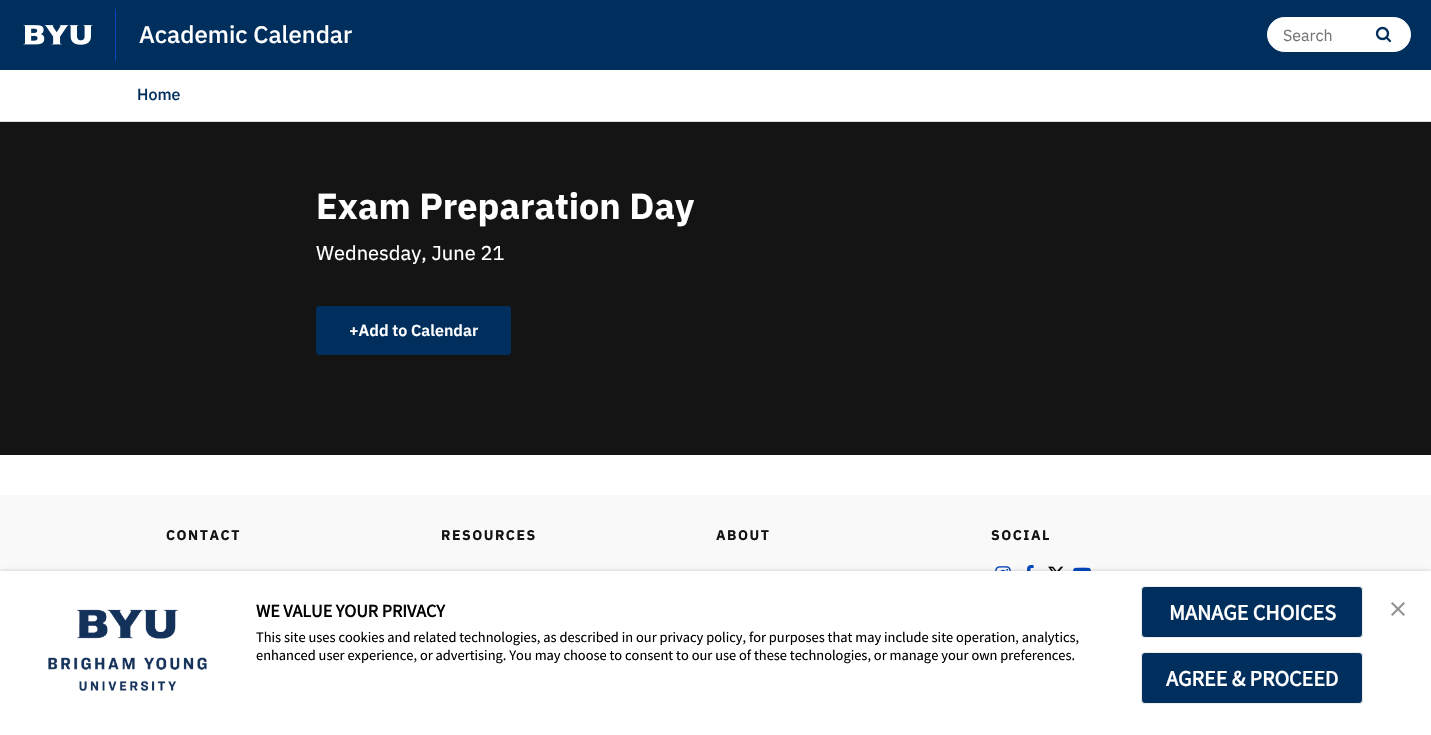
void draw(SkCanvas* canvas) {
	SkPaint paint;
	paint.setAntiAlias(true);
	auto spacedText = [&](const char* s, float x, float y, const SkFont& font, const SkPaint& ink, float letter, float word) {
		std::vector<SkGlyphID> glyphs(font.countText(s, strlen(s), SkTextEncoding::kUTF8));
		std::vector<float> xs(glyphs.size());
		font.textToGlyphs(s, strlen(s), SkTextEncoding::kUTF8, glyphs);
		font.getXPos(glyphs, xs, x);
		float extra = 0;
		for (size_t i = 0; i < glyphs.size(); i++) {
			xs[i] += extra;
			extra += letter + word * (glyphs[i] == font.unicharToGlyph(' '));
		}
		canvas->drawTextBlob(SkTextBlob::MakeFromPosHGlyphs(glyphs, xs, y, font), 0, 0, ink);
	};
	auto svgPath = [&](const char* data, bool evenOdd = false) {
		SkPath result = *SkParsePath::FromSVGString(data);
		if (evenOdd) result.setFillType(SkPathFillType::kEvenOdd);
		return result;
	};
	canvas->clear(0xffffffff);
	paint.setColor(0xffdddddd);
	canvas->drawRect(SkRect::MakeXYWH(0, 121, 1431, 1), paint);
	paint.setColor(0xff002e5d);
	canvas->drawRect(SkRect::MakeXYWH(0, 0, 1431, 70), paint);
	canvas->drawImageRect(SkImages::DeferredFromEncodedData(SkData::MakeFromFileName("img1.png")), SkRect::MakeXYWH(23, 25, 70, 20), SkSamplingOptions());
	paint.setColor(0xff0047ba);
	canvas->drawRect(SkRect::MakeXYWH(115, 9, 1, 52), paint);
	SkFont f1(fontMgr->matchFamilyStyle("IBM Plex Sans", SkFontStyle(500, SkFontStyle::kNormal_Width, SkFontStyle::kUpright_Slant)), 24);
	f1.setSubpixel(true);
	paint.setColor(0xffffffff);
	canvas->drawString("Academic Calendar", 139, 43, f1, paint);
	canvas->drawRoundRect(SkRect::MakeXYWH(1267.5, 17.5, 143, 34), 17, 17, paint);
	paint.setStroke(true);
	paint.setStrokeWidth(1);
	canvas->drawRoundRect(SkRect::MakeXYWH(1267.5, 17.5, 143, 34), 17, 17, paint);
	SkFont f2(fontMgr->matchFamilyStyle("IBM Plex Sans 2", SkFontStyle::Normal()), 16);
	f2.setSubpixel(true);
	paint.setStroke(false);
	paint.setColor(0xff757575);
	canvas->drawString("Search", 1283, 41, f2, paint);
	paint.setStroke(true);
	paint.setStrokeWidth(2.3);
	paint.setColor(0xff002e5d);
	canvas->drawCircle(1382.5, 33.5, 5.5, paint);
	paint.setStrokeCap(SkPaint::kRound_Cap);
	canvas->drawPath(svgPath("M1386.5 37.5L1390 41"), paint);
	SkFont f3(fontMgr->matchFamilyStyle("IBM Plex Sans", SkFontStyle(500, SkFontStyle::kNormal_Width, SkFontStyle::kUpright_Slant)), 16);
	f3.setSubpixel(true);
	paint.setStroke(false);
	canvas->drawString("Home", 137, 100, f3, paint);
	paint.setColor(0xff141414);
	canvas->drawRect(SkRect::MakeXYWH(0, 122, 1431, 333), paint);
	SkFont f4(fontMgr->matchFamilyStyle("IBM Plex Sans", SkFontStyle::Bold()), 36);
	f4.setSubpixel(true);
	paint.setColor(0xffffffff);
	canvas->drawString("Exam Preparation Day", 316, 219, f4, paint);
	SkFont f5(fontMgr->matchFamilyStyle("IBM Plex Sans", SkFontStyle::Normal()), 20);
	f5.setSubpixel(true);
	canvas->drawString("Wednesday, June 21", 316, 260, f5, paint);
	paint.setColor(0xff002e5d);
	canvas->drawRoundRect(SkRect::MakeXYWH(316.5, 306.5, 194, 48), 2.5, 2.5, paint);
	paint.setStroke(true);
	paint.setStrokeWidth(1);
	paint.setStrokeCap(SkPaint::kButt_Cap);
	canvas->drawRoundRect(SkRect::MakeXYWH(316.5, 306.5, 194, 48), 2.5, 2.5, paint);
	SkFont f6(fontMgr->matchFamilyStyle("IBM Plex Sans", SkFontStyle(600, SkFontStyle::kNormal_Width, SkFontStyle::kUpright_Slant)), 16);
	f6.setSubpixel(true);
	paint.setStroke(false);
	paint.setColor(0xffffffff);
	canvas->drawString("+Add to Calendar", 349, 336, f6, paint);
	paint.setColor(0xfff9f9f9);
	canvas->drawRect(SkRect::MakeXYWH(0, 495, 1431, 76), paint);
	SkFont f7(fontMgr->matchFamilyStyle("IBM Plex Sans", SkFontStyle::Bold()), 14);
	f7.setSubpixel(true);
	paint.setColor(0xff141414);
	spacedText("CONTACT", 166, 540, f7, paint, 1.5, 0);
	spacedText("RESOURCES", 441, 540, f7, paint, 1.5, 0);
	spacedText("ABOUT", 716, 540, f7, paint, 1.5, 0);
	spacedText("SOCIAL", 991, 540, f7, paint, 1.5, 0);
	canvas->drawImageRect(SkImages::DeferredFromEncodedData(SkData::MakeFromFileName("img2.png")), SkRect::MakeXYWH(995, 566, 16, 5), SkSamplingOptions());
	canvas->drawImageRect(SkImages::DeferredFromEncodedData(SkData::MakeFromFileName("img3.png")), SkRect::MakeXYWH(1027, 565, 7, 6), SkSamplingOptions());
	canvas->drawImageRect(SkImages::DeferredFromEncodedData(SkData::MakeFromFileName("img4.png")), SkRect::MakeXYWH(1048, 566, 16, 5), SkSamplingOptions());
	canvas->drawImageRect(SkImages::DeferredFromEncodedData(SkData::MakeFromFileName("img5.png")), SkRect::MakeXYWH(1073, 567, 18, 4), SkSamplingOptions());
	paint.setColor(0x33000000);
	paint.setMaskFilter(SkMaskFilter::MakeBlur(kNormal_SkBlurStyle, 2));
	canvas->drawRect(SkRect::MakeXYWH(0, 571, 1431, 164), paint);
	paint.setMaskFilter(nullptr);
	paint.setColor(0xffffffff);
	canvas->drawRect(SkRect::MakeXYWH(0, 571, 1431, 164), paint);
	canvas->drawImageRect(SkImages::DeferredFromEncodedData(SkData::MakeFromFileName("img6.png")), SkRect::MakeXYWH(48, 609, 159, 82), SkSamplingOptions());
	canvas->drawImageRect(SkImages::DeferredFromEncodedData(SkData::MakeFromFileName("img7.png")), SkRect::MakeXYWH(1391, 602, 14, 14), SkSamplingOptions());
	SkFont f8(fontMgr->matchFamilyStyle("Source Sans Pro", SkFontStyle::Bold()), 18);
	f8.setSubpixel(true);
	paint.setColor(0xff000000);
	canvas->drawString("WE VALUE YOUR PRIVACY", 256, 617, f8, paint);
	SkFont f9(fontMgr->matchFamilyStyle("Source Sans Pro", SkFontStyle::Normal()), 14.4);
	f9.setSubpixel(true);
	canvas->drawString("This site uses cookies and related technologies, as described in our privacy policy, for purposes that may include site operation, analytics,", 256, 642, f9, paint);
	canvas->drawString("enhanced user experience, or advertising. You may choose to consent to our use of these technologies, or manage your own preferences.", 256, 660, f9, paint);
	paint.setColor(0xff002e5d);
	canvas->drawRoundRect(SkRect::MakeXYWH(1141.5, 586.5, 221, 51), 3.5, 3.5, paint);
	paint.setStroke(true);
	paint.setColor(0xffeeeeee);
	canvas->drawRoundRect(SkRect::MakeXYWH(1141.5, 586.5, 221, 51), 3.5, 3.5, paint);
	SkFont f10(fontMgr->matchFamilyStyle("Source Sans Pro", SkFontStyle::Bold()), 22);
	f10.setSubpixel(true);
	paint.setStroke(false);
	paint.setColor(0xffffffff);
	canvas->drawString("MANAGE CHOICES", 1169, 620, f10, paint);
	paint.setColor(0xff002e5d);
	canvas->drawRoundRect(SkRect::MakeXYWH(1141.5, 652.5, 221, 51), 3.5, 3.5, paint);
	paint.setStroke(true);
	paint.setColor(0xffeeeeee);
	canvas->drawRoundRect(SkRect::MakeXYWH(1141.5, 652.5, 221, 51), 3.5, 3.5, paint);
	paint.setStroke(false);
	paint.setColor(0xffffffff);
	canvas->drawString("AGREE & PROCEED", 1166, 686, f10, paint);
}
